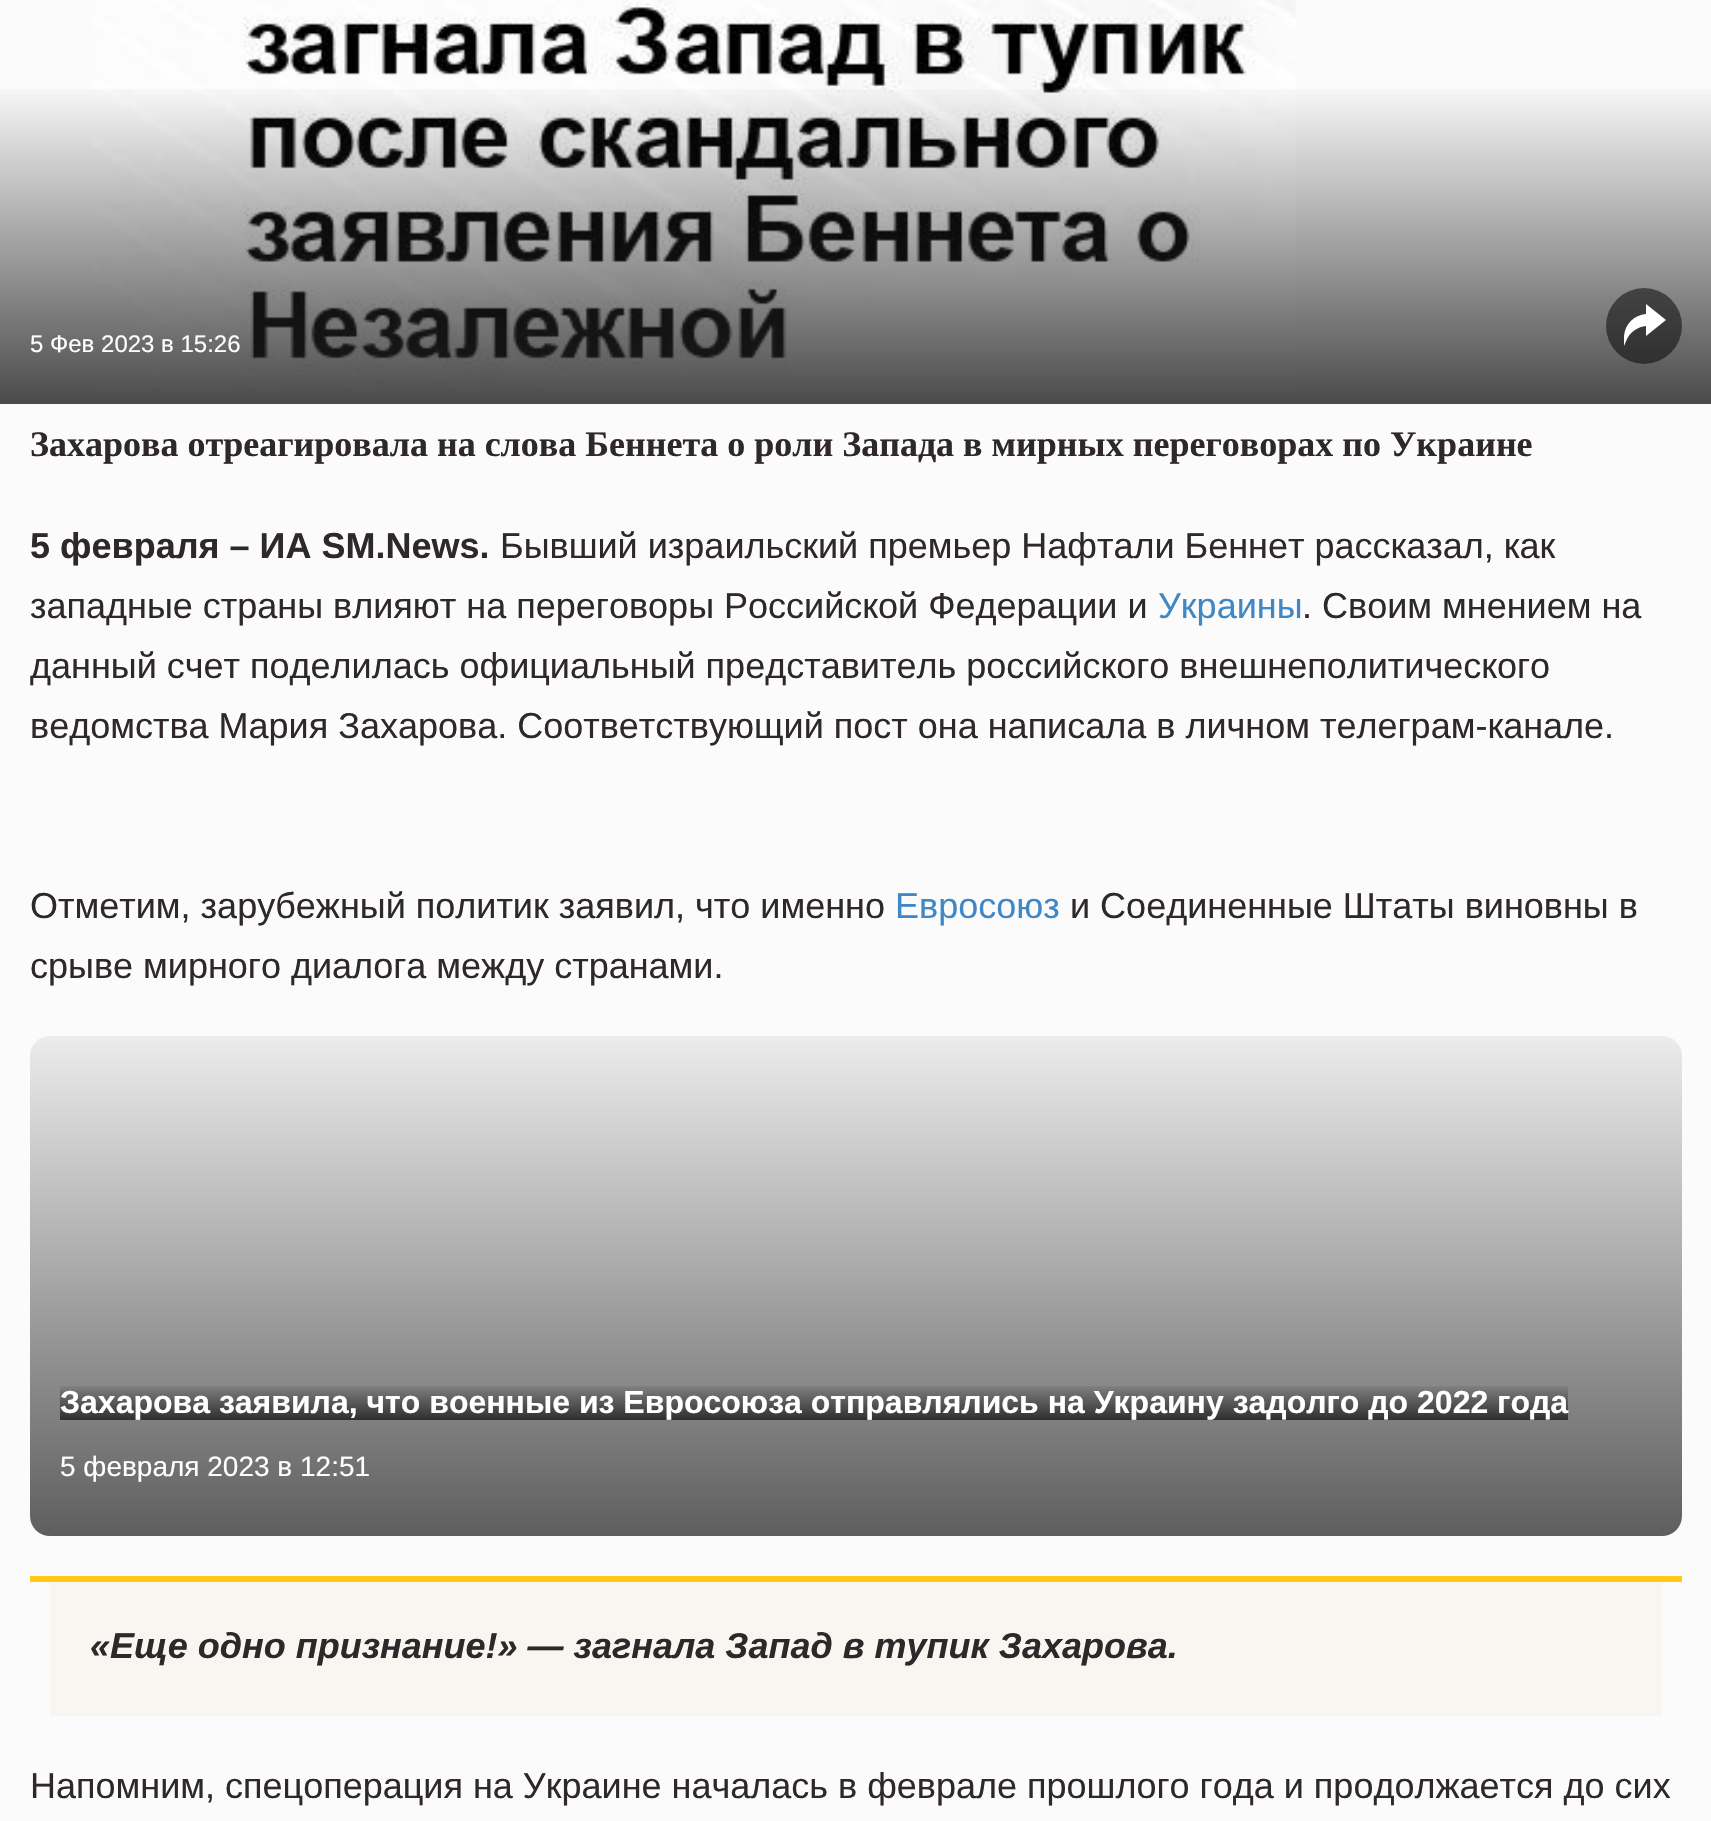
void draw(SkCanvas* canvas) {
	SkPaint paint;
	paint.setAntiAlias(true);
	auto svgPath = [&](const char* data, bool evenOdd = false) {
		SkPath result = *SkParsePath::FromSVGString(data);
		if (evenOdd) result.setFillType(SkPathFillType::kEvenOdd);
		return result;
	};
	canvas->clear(0xfffbfbfb);
	canvas->drawImageRect(SkImages::DeferredFromEncodedData(SkData::MakeFromFileName("img1.png")), SkRect::MakeXYWH(92, 0, 1204, 392), SkSamplingOptions());
	{
		const SkColor colors[] = {0x001e1e1e, 0xcc1e1e1e};
		const float stops[] = {0.46, 1};
		const SkPoint ends[] = {{856, -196}, {856, 404}};
		paint.setShader(SkGradientShader::MakeLinear(ends, colors, stops, 2, SkTileMode::kClamp));
		paint.setAlpha(255);
	}
	canvas->drawRect(SkRect::MakeXYWH(0, 89, 1711, 315), paint);
	SkFont f1(fontMgr->matchFamilyStyle("Liberation Sans", SkFontStyle::Normal()), 24);
	f1.setSubpixel(true);
	paint.setShader(nullptr);
	paint.setColor(0xffffffff);
	canvas->drawString("5 Фев 2023 в 15:26", 30, 352, f1, paint);
	paint.setColor(0x82000000);
	canvas->drawCircle(1644, 326, 38, paint);
	paint.setColor(0xffffffff);
	canvas->drawPath(svgPath("M1624 336C1625 324 1634 315 1646 314V304L1666 320L1646 336V326C1638 327 1631 331 1627 339L1624 346Z"), paint);
	SkFont f2(fontMgr->matchFamilyStyle("Liberation Serif", SkFontStyle::Bold()), 36);
	f2.setSubpixel(true);
	paint.setColor(0xff2e282a);
	canvas->drawString("Захарова отреагировала на слова Беннета о роли Запада в мирных переговорах по Украине", 30, 456, f2, paint);
	SkFont f3(fontMgr->matchFamilyStyle("Liberation Sans", SkFontStyle::Bold()), 36);
	f3.setSubpixel(true);
	canvas->drawString("5 февраля – ИА SM.News.", 30, 558, f3, paint);
	SkFont f4(fontMgr->matchFamilyStyle("Liberation Sans", SkFontStyle::Normal()), 36);
	f4.setSubpixel(true);
	canvas->drawString("Бывший израильский премьер Нафтали Беннет рассказал, как", 500, 558, f4, paint);
	canvas->drawString("западные страны влияют на переговоры Российской Федерации и", 30, 618, f4, paint);
	paint.setColor(0xff3f88c5);
	canvas->drawString("Украины", 1158, 618, f4, paint);
	paint.setColor(0xff2e282a);
	canvas->drawString(". Своим мнением на", 1302, 618, f4, paint);
	canvas->drawString("данный счет поделилась официальный представитель российского внешнеполитического", 30, 678, f4, paint);
	canvas->drawString("ведомства Мария Захарова. Соответствующий пост она написала в личном телеграм-канале.", 30, 738, f4, paint);
	canvas->drawString("Отметим, зарубежный политик заявил, что именно", 30, 918, f4, paint);
	paint.setColor(0xff3f88c5);
	canvas->drawString("Евросоюз", 895, 918, f4, paint);
	paint.setColor(0xff2e282a);
	canvas->drawString("и Соединенные Штаты виновны в", 1070, 918, f4, paint);
	canvas->drawString("срыве мирного диалога между странами.", 30, 978, f4, paint);
	{
		const SkColor colors[] = {0xff5e5e5e, 0xffececec};
		const float stops[] = {0, 1};
		const SkPoint ends[] = {{856, 1536}, {856, 1036}};
		paint.setShader(SkGradientShader::MakeLinear(ends, colors, stops, 2, SkTileMode::kClamp));
		paint.setAlpha(255);
	}
	canvas->drawRoundRect(SkRect::MakeXYWH(30, 1036, 1652, 500), 20, 20, paint);
	{
		const SkColor colors[] = {0xa1000000, 0x0f000000};
		const float stops[] = {0, 1};
		const SkPoint ends[] = {{814, 1420}, {814, 1386}};
		paint.setShader(SkGradientShader::MakeLinear(ends, colors, stops, 2, SkTileMode::kClamp));
		paint.setAlpha(255);
	}
	canvas->drawRect(SkRect::MakeXYWH(60, 1386, 1508, 34), paint);
	SkFont f5(fontMgr->matchFamilyStyle("Liberation Sans", SkFontStyle::Bold()), 32);
	f5.setSubpixel(true);
	paint.setShader(nullptr);
	paint.setColor(0xffffffff);
	canvas->drawString("Захарова заявила, что военные из Евросоюза отправлялись на Украину задолго до 2022 года", 60, 1413, f5, paint);
	SkFont f6(fontMgr->matchFamilyStyle("Liberation Sans", SkFontStyle::Normal()), 28);
	f6.setSubpixel(true);
	canvas->drawString("5 февраля 2023 в 12:51", 60, 1476, f6, paint);
	paint.setColor(0xffffc914);
	canvas->drawRect(SkRect::MakeXYWH(30, 1576, 1652, 6), paint);
	paint.setColor(0xfff7f6f1);
	canvas->drawRect(SkRect::MakeXYWH(50, 1582, 1612, 134), paint);
	SkFont f7(fontMgr->matchFamilyStyle("Liberation Sans", SkFontStyle::BoldItalic()), 36);
	f7.setSubpixel(true);
	paint.setColor(0xff2e282a);
	canvas->drawString("«Еще одно признание!» — загнала Запад в тупик Захарова.", 90, 1658, f7, paint);
	canvas->drawString("Напомним, спецоперация на Украине началась в феврале прошлого года и продолжается до сих", 30, 1798, f4, paint);
}
